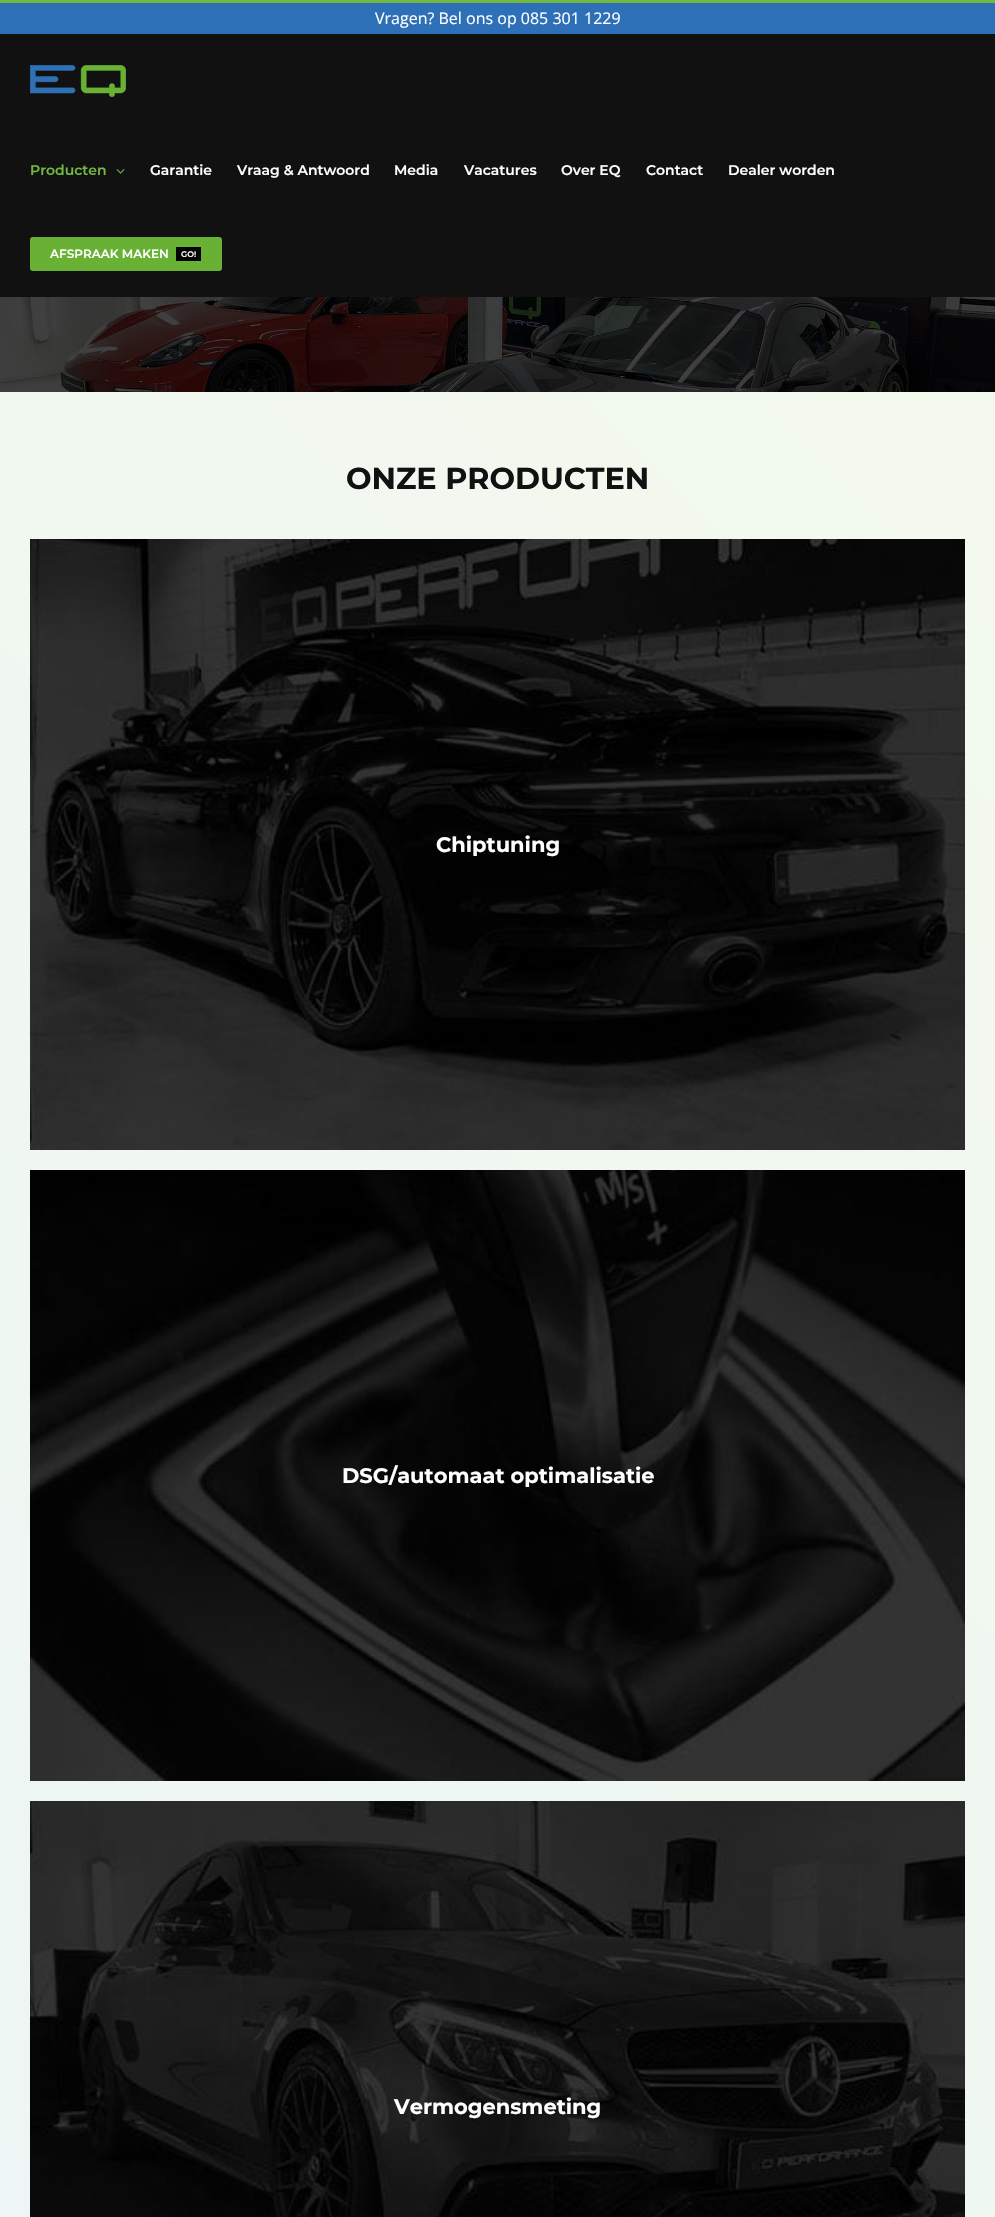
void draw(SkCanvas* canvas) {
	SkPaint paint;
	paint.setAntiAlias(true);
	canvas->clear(0xffffffff);
	paint.setColor(0xff2e70b7);
	canvas->drawRect(SkRect::MakeXYWH(0, 3, 995, 31), paint);
	paint.setColor(0xff73b841);
	canvas->drawRect(SkRect::MakeXYWH(0, 0, 995, 3), paint);
	SkFont f1(fontMgr->matchFamilyStyle("Open Sans", SkFontStyle::Normal()), 16);
	f1.setSubpixel(true);
	paint.setColor(0xffffffff);
	canvas->drawString("Vragen? Bel ons op 085 301 1229", 375, 24, f1, paint);
	paint.setColor(0xff111111);
	canvas->drawRect(SkRect::MakeXYWH(0, 34, 995, 263), paint);
	canvas->drawImageRect(SkImages::DeferredFromEncodedData(SkData::MakeFromFileName("img1.png")), SkRect::MakeXYWH(30, 65, 96, 32), SkSamplingOptions());
	SkFont f2(fontMgr->matchFamilyStyle("Montserrat", SkFontStyle(600, SkFontStyle::kNormal_Width, SkFontStyle::kUpright_Slant)), 14);
	f2.setSubpixel(true);
	paint.setColor(0xff73b841);
	canvas->drawString("Producten", 30, 175, f2, paint);
	canvas->drawImageRect(SkImages::DeferredFromEncodedData(SkData::MakeFromFileName("img2.png")), SkRect::MakeXYWH(116, 169, 9, 5), SkSamplingOptions());
	paint.setColor(0xffffffff);
	canvas->drawString("Garantie", 150, 175, f2, paint);
	canvas->drawString("Vraag & Antwoord", 237, 175, f2, paint);
	canvas->drawString("Media", 394, 175, f2, paint);
	canvas->drawString("Vacatures", 464, 175, f2, paint);
	canvas->drawString("Over EQ", 561, 175, f2, paint);
	canvas->drawString("Contact", 646, 175, f2, paint);
	canvas->drawString("Dealer worden", 728, 175, f2, paint);
	paint.setColor(0xff69b134);
	canvas->drawRoundRect(SkRect::MakeXYWH(30, 237, 192, 34), 3, 3, paint);
	SkFont f3(fontMgr->matchFamilyStyle("Montserrat", SkFontStyle(600, SkFontStyle::kNormal_Width, SkFontStyle::kUpright_Slant)), 12);
	f3.setSubpixel(true);
	paint.setColor(0xffffffff);
	canvas->drawString("AFSPRAAK MAKEN", 50, 258, f3, paint);
	paint.setColor(0xff000000);
	canvas->drawRect(SkRect::MakeXYWH(176, 247, 25, 14), paint);
	SkFont f4(fontMgr->matchFamilyStyle("Montserrat", SkFontStyle(600, SkFontStyle::kNormal_Width, SkFontStyle::kUpright_Slant)), 8);
	f4.setSubpixel(true);
	paint.setColor(0xffffffff);
	canvas->drawString("GO!", 181, 257, f4, paint);
	canvas->drawImageRect(SkImages::DeferredFromEncodedData(SkData::MakeFromFileName("img3.png")), SkRect::MakeXYWH(0, 297, 995, 95), SkSamplingOptions());
	{
		const SkColor colors[] = {0xfff3f9ed, 0xffe9f3fa};
		const float stops[] = {0, 1};
		const SkPoint ends[] = {{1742, 1138}, {-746, 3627}};
		paint.setShader(SkGradientShader::MakeLinear(ends, colors, stops, 2, SkTileMode::kClamp));
		paint.setAlpha(255);
	}
	canvas->drawRect(SkRect::MakeXYWH(0, 392, 995, 1825), paint);
	SkFont f5(fontMgr->matchFamilyStyle("Montserrat", SkFontStyle::Bold()), 30.25);
	f5.setSubpixel(true);
	paint.setShader(nullptr);
	paint.setColor(0xff111111);
	canvas->drawString("ONZE PRODUCTEN", 346, 489, f5, paint);
	canvas->drawImageRect(SkImages::DeferredFromEncodedData(SkData::MakeFromFileName("img4.png")), SkRect::MakeXYWH(30, 539, 935, 611), SkSamplingOptions());
	SkFont f6(fontMgr->matchFamilyStyle("Montserrat", SkFontStyle::Bold()), 21);
	f6.setSubpixel(true);
	paint.setColor(0xffffffff);
	canvas->drawString("Chiptuning", 436, 852, f6, paint);
	canvas->drawImageRect(SkImages::DeferredFromEncodedData(SkData::MakeFromFileName("img5.png")), SkRect::MakeXYWH(30, 1170, 935, 611), SkSamplingOptions());
	canvas->drawString("DSG/automaat optimalisatie", 342, 1483, f6, paint);
	canvas->drawImageRect(SkImages::DeferredFromEncodedData(SkData::MakeFromFileName("img6.png")), SkRect::MakeXYWH(30, 1801, 935, 416), SkSamplingOptions());
	canvas->drawString("Vermogensmeting", 394, 2114, f6, paint);
}
